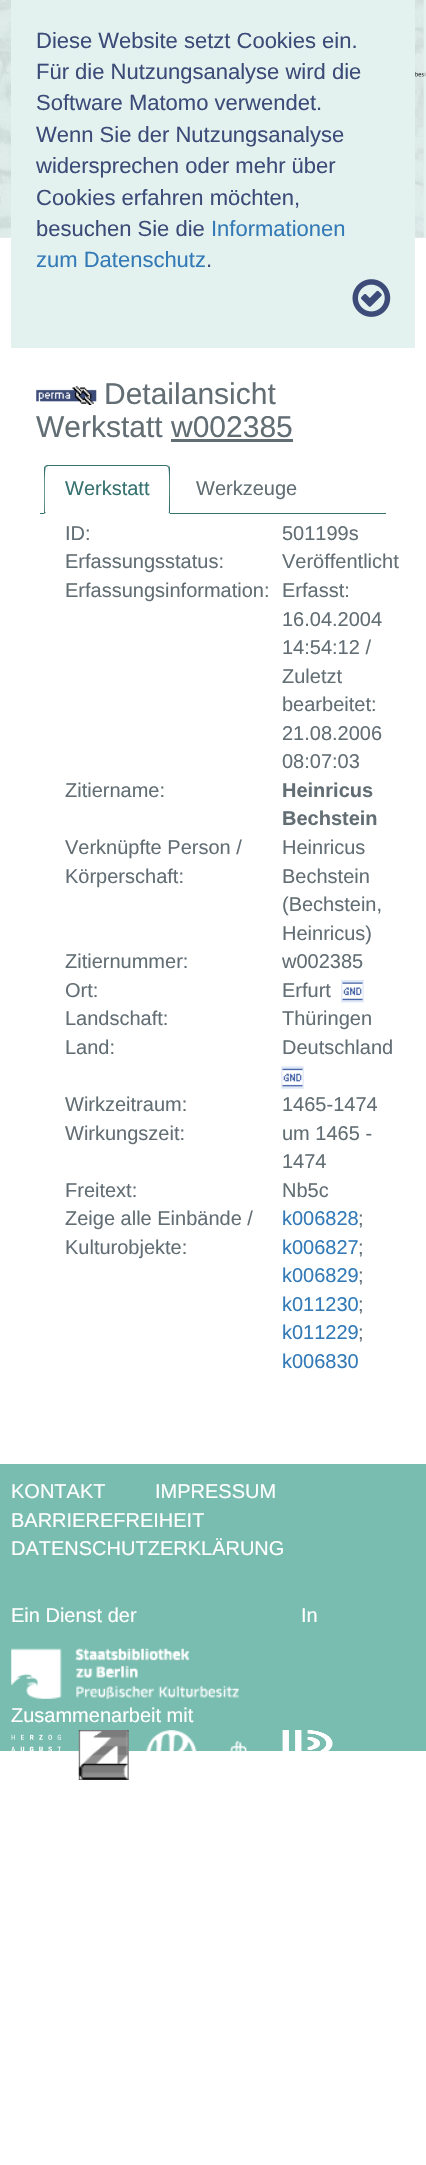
void draw(SkCanvas* canvas) {
	SkPaint paint;
	paint.setAntiAlias(true);
	auto svgPath = [&](const char* data, bool evenOdd = false) {
		SkPath result = *SkParsePath::FromSVGString(data);
		if (evenOdd) result.setFillType(SkPathFillType::kEvenOdd);
		return result;
	};
	canvas->clear(0xffffffff);
	paint.setColor(0xffe4f2ef);
	canvas->drawRect(SkRect::MakeXYWH(0, 0, 426, 238), paint);
	canvas->drawImageRect(SkImages::DeferredFromEncodedData(SkData::MakeFromFileName("img1.png")), SkRect::MakeXYWH(0, 0, 424, 238), SkSamplingOptions());
	canvas->drawRect(SkRect::MakeXYWH(11, 0, 404, 348), paint);
	SkFont f1(fontMgr->matchFamilyStyle("Liberation Sans", SkFontStyle::Normal()), 22);
	f1.setSubpixel(true);
	paint.setColor(0xff3c4b78);
	canvas->drawString("Diese Website setzt Cookies ein.", 36, 48, f1, paint);
	canvas->drawString("Für die Nutzungsanalyse wird die", 36, 79, f1, paint);
	canvas->drawString("Software Matomo verwendet.", 36, 110, f1, paint);
	canvas->drawString("Wenn Sie der Nutzungsanalyse", 36, 142, f1, paint);
	canvas->drawString("widersprechen oder mehr über", 36, 173, f1, paint);
	canvas->drawString("Cookies erfahren möchten,", 36, 205, f1, paint);
	canvas->drawString("besuchen Sie die", 36, 236, f1, paint);
	paint.setColor(0xff337ab7);
	canvas->drawString("Informationen", 211, 236, f1, paint);
	canvas->drawString("zum Datenschutz", 36, 267, f1, paint);
	paint.setColor(0xff3c4b78);
	canvas->drawString(".", 206, 267, f1, paint);
	canvas->drawImageRect(SkImages::DeferredFromEncodedData(SkData::MakeFromFileName("img2.png")), SkRect::MakeXYWH(352, 279, 39, 38), SkSamplingOptions());
	canvas->drawImageRect(SkImages::DeferredFromEncodedData(SkData::MakeFromFileName("img3.png")), SkRect::MakeXYWH(415, 71, 11, 6), SkSamplingOptions());
	canvas->drawImageRect(SkImages::DeferredFromEncodedData(SkData::MakeFromFileName("img4.png")), SkRect::MakeXYWH(36, 386, 61, 19), SkSamplingOptions());
	SkFont f2(fontMgr->matchFamilyStyle("Liberation Sans", SkFontStyle::Normal()), 30);
	f2.setSubpixel(true);
	paint.setColor(0xff626e74);
	canvas->drawString("Detailansicht", 104, 404, f2, paint);
	canvas->drawString("Werkstatt w002385", 36, 437, f2, paint);
	canvas->drawRect(SkRect::MakeXYWH(171, 439, 122, 3), paint);
	paint.setColor(0xff367270);
	canvas->drawRect(SkRect::MakeXYWH(40, 513, 346, 1), paint);
	paint.setColor(0xffffffff);
	canvas->drawPath(svgPath("M48 465H166C168 465 170 467 170 469V514H44V469C44 467 46 465 48 465Z"), paint);
	paint.setColor(0xff367270);
	canvas->drawPath(svgPath("M48 465C47 465 46 465 45 466L46 467L48 466H166L168 467L169 466L166 465Z"), paint);
	canvas->drawPath(svgPath("M170 514V469C170 468 170 467 169 466L168 467C170 469 169 507 169 512H168Z"), paint);
	paint.setColor(0xffffffff);
	canvas->drawPath(svgPath("M170 514H44L46 512H168Z"), paint);
	paint.setColor(0xff367270);
	canvas->drawPath(svgPath("M45 466C44 467 44 468 44 469V514L46 512H45C45 507 44 469 46 467Z"), paint);
	SkFont f3(fontMgr->matchFamilyStyle("Liberation Sans", SkFontStyle::Normal()), 20);
	f3.setSubpixel(true);
	canvas->drawString("Werkstatt", 65, 495, f3, paint);
	paint.setColor(0xff626e74);
	canvas->drawString("Werkzeuge", 196, 495, f3, paint);
	canvas->drawString("ID:", 65, 540, f3, paint);
	canvas->drawString("501199s", 282, 540, f3, paint);
	canvas->drawString("Erfassungsstatus:", 65, 568, f3, paint);
	canvas->drawString("Veröffentlicht", 282, 568, f3, paint);
	canvas->drawString("Erfassungsinformation:", 65, 597, f3, paint);
	canvas->drawString("Erfasst:", 282, 597, f3, paint);
	canvas->drawString("16.04.2004", 282, 626, f3, paint);
	canvas->drawString("14:54:12 /", 282, 654, f3, paint);
	canvas->drawString("Zuletzt", 282, 683, f3, paint);
	canvas->drawString("bearbeitet:", 282, 711, f3, paint);
	canvas->drawString("21.08.2006", 282, 740, f3, paint);
	canvas->drawString("08:07:03", 282, 768, f3, paint);
	canvas->drawString("Zitiername:", 65, 797, f3, paint);
	SkFont f4(fontMgr->matchFamilyStyle("Liberation Sans", SkFontStyle::Bold()), 20);
	f4.setSubpixel(true);
	canvas->drawString("Heinricus", 282, 797, f4, paint);
	canvas->drawString("Bechstein", 282, 825, f4, paint);
	canvas->drawString("Verknüpfte Person /", 65, 854, f3, paint);
	canvas->drawString("Körperschaft:", 65, 883, f3, paint);
	canvas->drawString("Heinricus", 282, 854, f3, paint);
	canvas->drawString("Bechstein", 282, 883, f3, paint);
	canvas->drawString("(Bechstein,", 282, 911, f3, paint);
	canvas->drawString("Heinricus)", 282, 940, f3, paint);
	canvas->drawString("Zitiernummer:", 65, 968, f3, paint);
	canvas->drawString("w002385", 282, 968, f3, paint);
	canvas->drawString("Ort:", 65, 997, f3, paint);
	canvas->drawString("Erfurt", 282, 997, f3, paint);
	canvas->drawImageRect(SkImages::DeferredFromEncodedData(SkData::MakeFromFileName("img5.png")), SkRect::MakeXYWH(341, 980, 23, 23), SkSamplingOptions());
	canvas->drawString("Landschaft:", 65, 1025, f3, paint);
	canvas->drawString("Thüringen", 282, 1025, f3, paint);
	canvas->drawString("Land:", 65, 1054, f3, paint);
	canvas->drawString("Deutschland", 282, 1054, f3, paint);
	canvas->drawImageRect(SkImages::DeferredFromEncodedData(SkData::MakeFromFileName("img6.png")), SkRect::MakeXYWH(281, 1066, 23, 23), SkSamplingOptions());
	canvas->drawString("Wirkzeitraum:", 65, 1111, f3, paint);
	canvas->drawString("1465-1474", 282, 1111, f3, paint);
	canvas->drawString("Wirkungszeit:", 65, 1140, f3, paint);
	canvas->drawString("um 1465 -", 282, 1140, f3, paint);
	canvas->drawString("1474", 282, 1168, f3, paint);
	canvas->drawString("Freitext:", 65, 1197, f3, paint);
	canvas->drawString("Nb5c", 282, 1197, f3, paint);
	canvas->drawString("Zeige alle Einbände /", 65, 1225, f3, paint);
	canvas->drawString("Kulturobjekte:", 65, 1254, f3, paint);
	paint.setColor(0xff337ab7);
	canvas->drawString("k006828", 282, 1225, f3, paint);
	paint.setColor(0xff626e74);
	canvas->drawString(";", 358, 1225, f3, paint);
	paint.setColor(0xff337ab7);
	canvas->drawString("k006827", 282, 1254, f3, paint);
	paint.setColor(0xff626e74);
	canvas->drawString(";", 358, 1254, f3, paint);
	paint.setColor(0xff337ab7);
	canvas->drawString("k006829", 282, 1282, f3, paint);
	paint.setColor(0xff626e74);
	canvas->drawString(";", 358, 1282, f3, paint);
	paint.setColor(0xff337ab7);
	canvas->drawString("k011230", 282, 1311, f3, paint);
	paint.setColor(0xff626e74);
	canvas->drawString(";", 358, 1311, f3, paint);
	paint.setColor(0xff337ab7);
	canvas->drawString("k011229", 282, 1339, f3, paint);
	paint.setColor(0xff626e74);
	canvas->drawString(";", 358, 1339, f3, paint);
	paint.setColor(0xff337ab7);
	canvas->drawString("k006830", 282, 1368, f3, paint);
	paint.setColor(0xff79bdb0);
	canvas->drawRect(SkRect::MakeXYWH(0, 1464, 426, 287), paint);
	paint.setColor(0xffffffff);
	canvas->drawString("KONTAKT", 11, 1498, f3, paint);
	canvas->drawString("IMPRESSUM", 155, 1498, f3, paint);
	canvas->drawString("BARRIEREFREIHEIT", 11, 1527, f3, paint);
	canvas->drawString("DATENSCHUTZERKLÄRUNG", 11, 1555, f3, paint);
	canvas->drawString("Ein Dienst der", 11, 1622, f3, paint);
	canvas->drawImageRect(SkImages::DeferredFromEncodedData(SkData::MakeFromFileName("img7.png")), SkRect::MakeXYWH(11, 1648, 228, 51), SkSamplingOptions());
	canvas->drawString("In", 301, 1622, f3, paint);
	canvas->drawString("Zusammenarbeit mit", 11, 1722, f3, paint);
	canvas->drawImageRect(SkImages::DeferredFromEncodedData(SkData::MakeFromFileName("img8.png")), SkRect::MakeXYWH(11, 1734, 50, 17), SkSamplingOptions());
	canvas->drawImageRect(SkImages::DeferredFromEncodedData(SkData::MakeFromFileName("img9.png")), SkRect::MakeXYWH(78, 1730, 51, 50), SkSamplingOptions());
	canvas->drawImageRect(SkImages::DeferredFromEncodedData(SkData::MakeFromFileName("img10.png")), SkRect::MakeXYWH(146, 1730, 51, 21), SkSamplingOptions());
	canvas->drawImageRect(SkImages::DeferredFromEncodedData(SkData::MakeFromFileName("img11.png")), SkRect::MakeXYWH(230, 1741, 17, 10), SkSamplingOptions());
	canvas->drawImageRect(SkImages::DeferredFromEncodedData(SkData::MakeFromFileName("img12.png")), SkRect::MakeXYWH(282, 1730, 51, 21), SkSamplingOptions());
}
